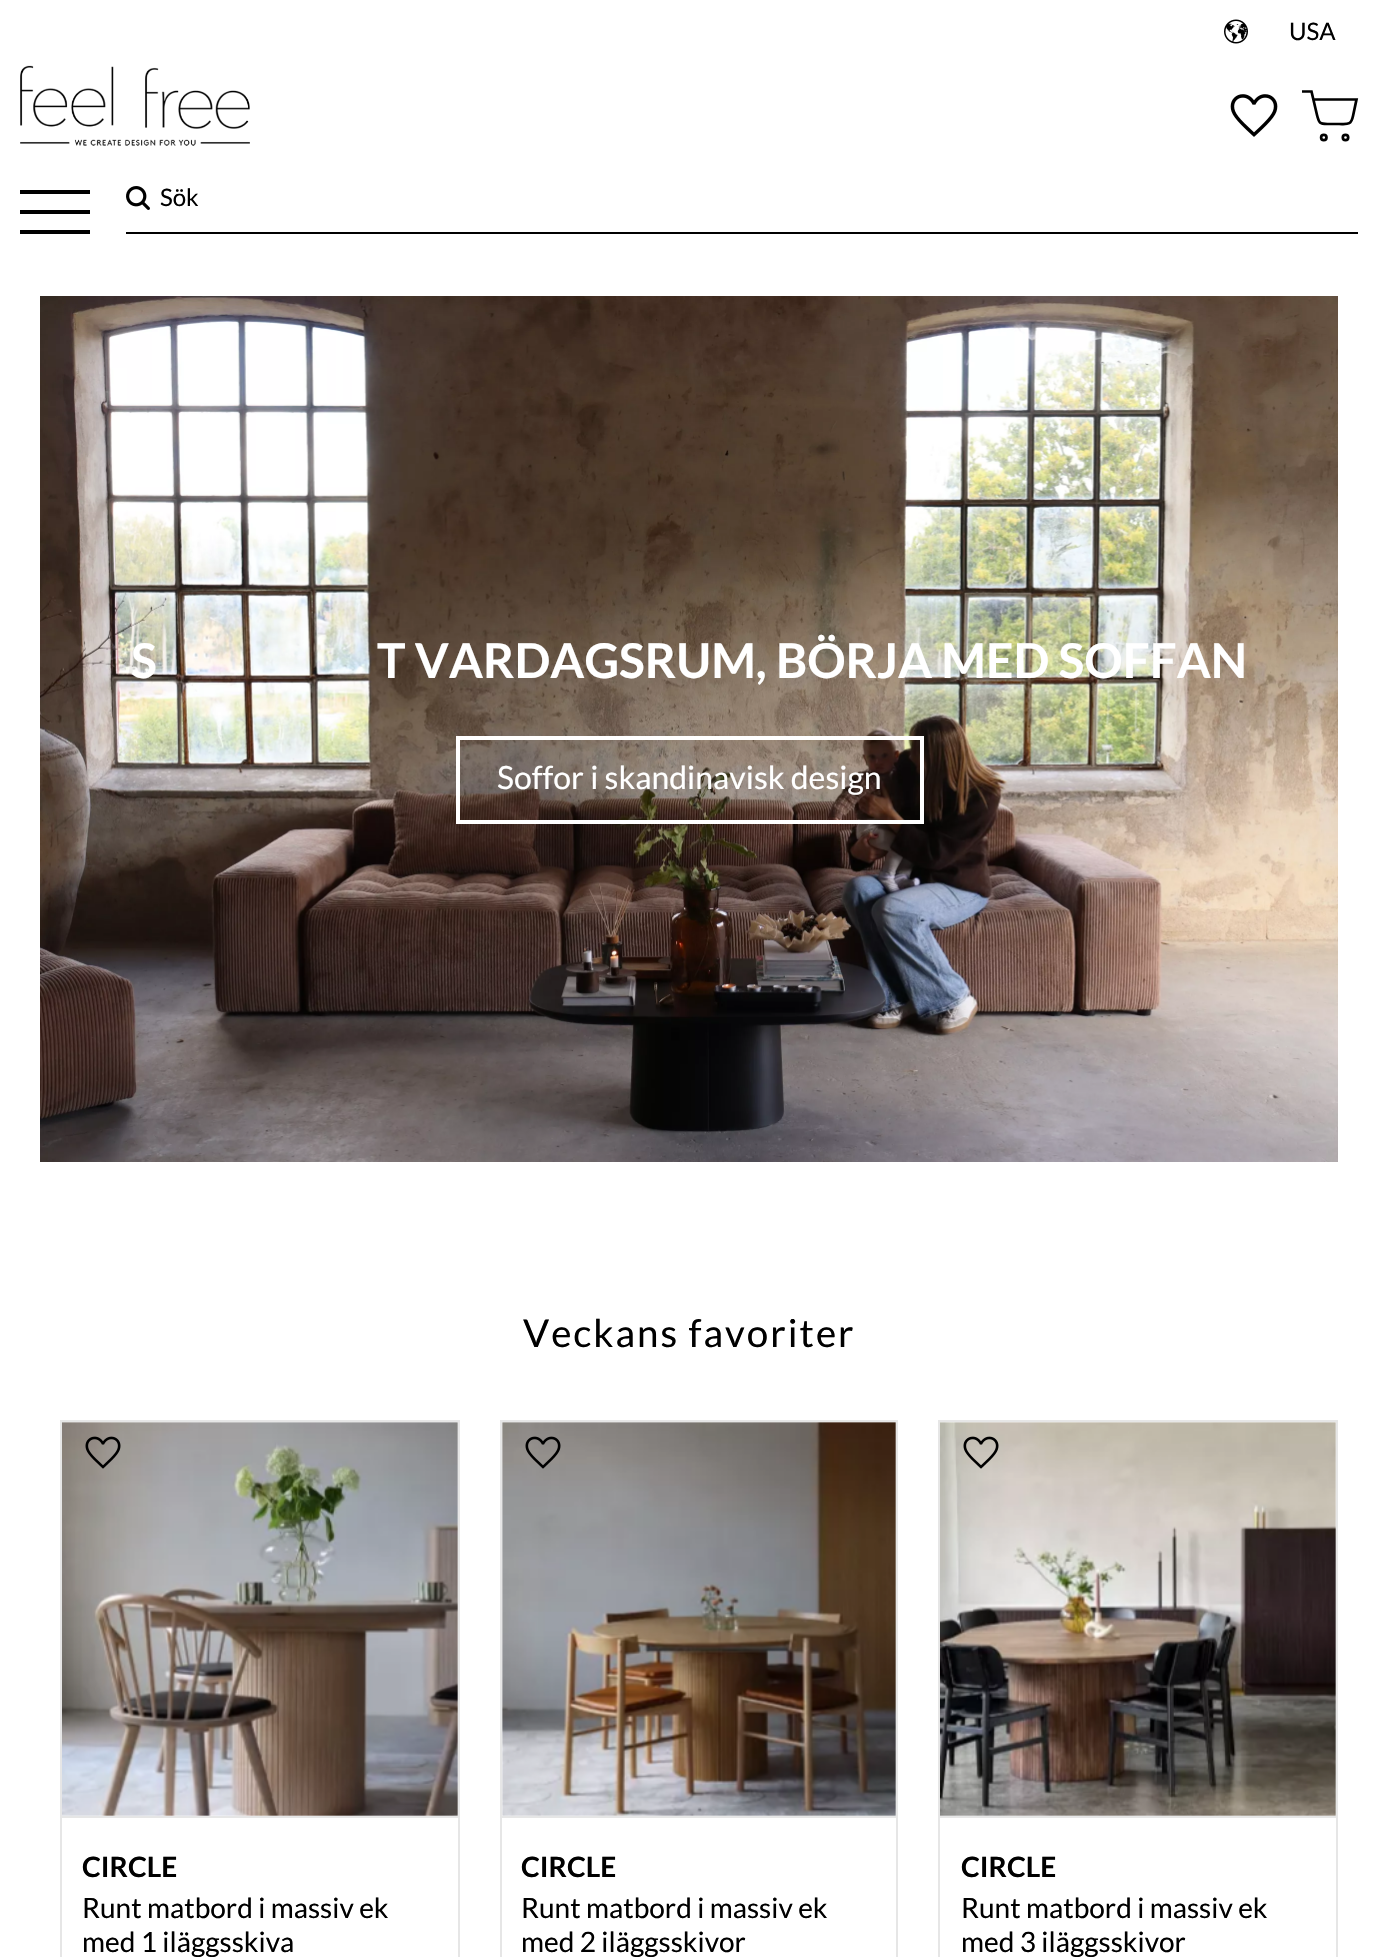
void draw(SkCanvas* canvas) {
	SkPaint paint;
	paint.setAntiAlias(true);
	auto spacedText = [&](const char* s, float x, float y, const SkFont& font, const SkPaint& ink, float letter, float word) {
		std::vector<SkGlyphID> glyphs(font.countText(s, strlen(s), SkTextEncoding::kUTF8));
		std::vector<float> xs(glyphs.size());
		font.textToGlyphs(s, strlen(s), SkTextEncoding::kUTF8, glyphs);
		font.getXPos(glyphs, xs, x);
		float extra = 0;
		for (size_t i = 0; i < glyphs.size(); i++) {
			xs[i] += extra;
			extra += letter + word * (glyphs[i] == font.unicharToGlyph(' '));
		}
		canvas->drawTextBlob(SkTextBlob::MakeFromPosHGlyphs(glyphs, xs, y, font), 0, 0, ink);
	};
	auto svgPath = [&](const char* data, bool evenOdd = false) {
		SkPath result = *SkParsePath::FromSVGString(data);
		if (evenOdd) result.setFillType(SkPathFillType::kEvenOdd);
		return result;
	};
	canvas->clear(0xffffffff);
	canvas->drawImageRect(SkImages::DeferredFromEncodedData(SkData::MakeFromFileName("img1.png")), SkRect::MakeXYWH(1224, 19, 24, 25), SkSamplingOptions());
	SkFont f1(fontMgr->matchFamilyStyle("Lato", SkFontStyle::Normal()), 24);
	f1.setSubpixel(true);
	paint.setColor(0xff000000);
	canvas->drawString("USA", 1289, 40, f1, paint);
	canvas->drawImageRect(SkImages::DeferredFromEncodedData(SkData::MakeFromFileName("img2.png")), SkRect::MakeXYWH(20, 65, 230, 81), SkSamplingOptions());
	canvas->drawImageRect(SkImages::DeferredFromEncodedData(SkData::MakeFromFileName("img3.png")), SkRect::MakeXYWH(1230, 94, 48, 43), SkSamplingOptions());
	paint.setStroke(true);
	paint.setStrokeWidth(2.7);
	canvas->drawCircle(1323.8, 137.5, 2.7, paint);
	canvas->drawCircle(1345.5, 137.5, 2.7, paint);
	canvas->drawPath(svgPath("M1302 91.5H1311.5L1317 115C1319 123 1319.5 124 1327.5 124H1339C1347.5 124 1351 125.5 1353 116L1356.5 99.5H1314.5"), paint);
	paint.setStroke(false);
	canvas->drawRect(SkRect::MakeXYWH(126, 232, 1232, 2), paint);
	canvas->drawImageRect(SkImages::DeferredFromEncodedData(SkData::MakeFromFileName("img4.png")), SkRect::MakeXYWH(126, 186, 24, 24), SkSamplingOptions());
	canvas->drawString("Sök", 160, 206, f1, paint);
	canvas->drawRect(SkRect::MakeXYWH(20, 210, 70, 4), paint);
	canvas->drawRect(SkRect::MakeXYWH(20, 190, 70, 4), paint);
	canvas->drawRect(SkRect::MakeXYWH(20, 230, 70, 4), paint);
	canvas->drawImageRect(SkImages::DeferredFromEncodedData(SkData::MakeFromFileName("img5.png")), SkRect::MakeXYWH(40, 296, 1298, 866), SkSamplingOptions());
	SkFont f2(fontMgr->matchFamilyStyle("Lato", SkFontStyle::Bold()), 48);
	f2.setSubpixel(true);
	paint.setColor(0xffffffff);
	canvas->drawString("S", 131, 678, f2, paint);
	canvas->drawString("T VARDAGSRUM, BÖRJA MED SOFFAN", 377, 678, f2, paint);
	paint.setStroke(true);
	paint.setStrokeWidth(4);
	canvas->drawRect(SkRect::MakeXYWH(458, 738, 464, 84), paint);
	SkFont f3(fontMgr->matchFamilyStyle("Lato", SkFontStyle::Normal()), 32);
	f3.setSubpixel(true);
	paint.setStroke(false);
	canvas->drawString("Soffor i skandinavisk design", 497, 789, f3, paint);
	SkFont f4(fontMgr->matchFamilyStyle("Lato", SkFontStyle::Normal()), 38.5);
	f4.setSubpixel(true);
	paint.setColor(0xff000000);
	spacedText("Veckans favoriter", 523, 1347, f4, paint, 2, 0);
	paint.setStroke(true);
	paint.setStrokeWidth(2);
	paint.setColor(0xffe6e6e6);
	canvas->drawRect(SkRect::MakeXYWH(61, 1421, 398, 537), paint);
	canvas->drawImageRect(SkImages::DeferredFromEncodedData(SkData::MakeFromFileName("img7.png")), SkRect::MakeXYWH(62, 1422, 396, 394), SkSamplingOptions());
	canvas->drawImageRect(SkImages::DeferredFromEncodedData(SkData::MakeFromFileName("img6.png")), SkRect::MakeXYWH(85, 1436, 36, 33), SkSamplingOptions());
	paint.setStroke(false);
	canvas->drawRect(SkRect::MakeXYWH(62, 1816, 396, 2), paint);
	SkFont f5(fontMgr->matchFamilyStyle("Lato", SkFontStyle::Bold()), 28);
	f5.setSubpixel(true);
	paint.setColor(0xff000000);
	canvas->drawString("CIRCLE", 82, 1877, f5, paint);
	SkFont f6(fontMgr->matchFamilyStyle("Lato", SkFontStyle::Normal()), 28);
	f6.setSubpixel(true);
	canvas->drawString("Runt matbord i massiv ek", 82, 1918, f6, paint);
	canvas->drawString("med 1 iläggsskiva", 82, 1952, f6, paint);
	paint.setStroke(true);
	paint.setColor(0xffe6e6e6);
	canvas->drawRect(SkRect::MakeXYWH(501, 1421, 396, 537), paint);
	canvas->drawImageRect(SkImages::DeferredFromEncodedData(SkData::MakeFromFileName("img9.png")), SkRect::MakeXYWH(502, 1422, 394, 394), SkSamplingOptions());
	canvas->drawImageRect(SkImages::DeferredFromEncodedData(SkData::MakeFromFileName("img8.png")), SkRect::MakeXYWH(525, 1436, 36, 33), SkSamplingOptions());
	paint.setStroke(false);
	canvas->drawRect(SkRect::MakeXYWH(502, 1816, 394, 2), paint);
	paint.setColor(0xff000000);
	canvas->drawString("CIRCLE", 521, 1877, f5, paint);
	canvas->drawString("Runt matbord i massiv ek", 521, 1918, f6, paint);
	canvas->drawString("med 2 iläggsskivor", 521, 1952, f6, paint);
	paint.setStroke(true);
	paint.setColor(0xffe6e6e6);
	canvas->drawRect(SkRect::MakeXYWH(939, 1421, 398, 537), paint);
	canvas->drawImageRect(SkImages::DeferredFromEncodedData(SkData::MakeFromFileName("img11.png")), SkRect::MakeXYWH(940, 1422, 396, 394), SkSamplingOptions());
	canvas->drawImageRect(SkImages::DeferredFromEncodedData(SkData::MakeFromFileName("img10.png")), SkRect::MakeXYWH(963, 1436, 36, 33), SkSamplingOptions());
	paint.setStroke(false);
	canvas->drawRect(SkRect::MakeXYWH(940, 1816, 396, 2), paint);
	paint.setColor(0xff000000);
	canvas->drawString("CIRCLE", 961, 1877, f5, paint);
	canvas->drawString("Runt matbord i massiv ek", 961, 1918, f6, paint);
	canvas->drawString("med 3 iläggsskivor", 961, 1952, f6, paint);
}
